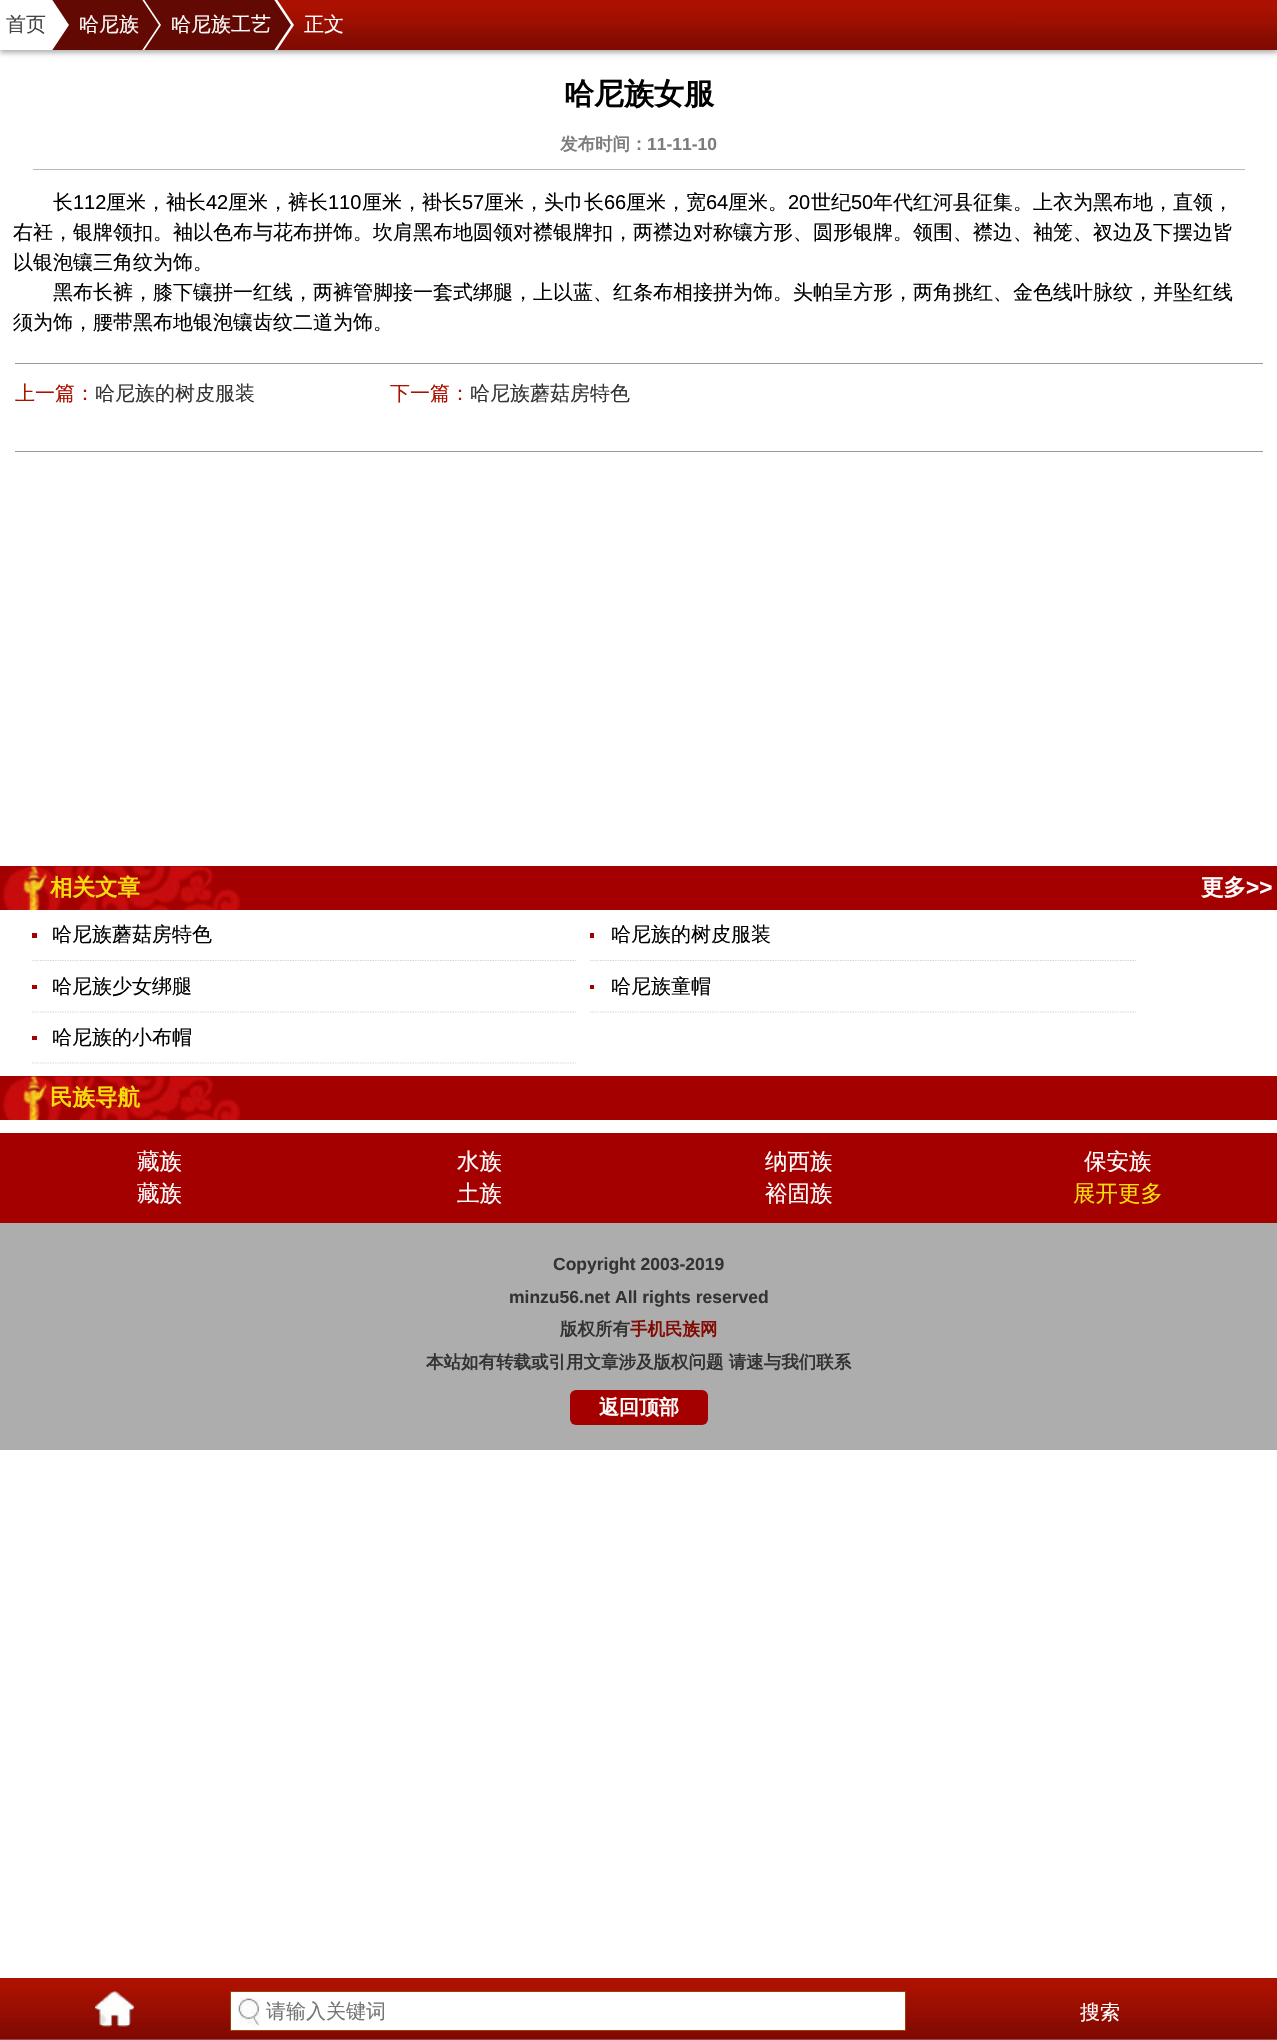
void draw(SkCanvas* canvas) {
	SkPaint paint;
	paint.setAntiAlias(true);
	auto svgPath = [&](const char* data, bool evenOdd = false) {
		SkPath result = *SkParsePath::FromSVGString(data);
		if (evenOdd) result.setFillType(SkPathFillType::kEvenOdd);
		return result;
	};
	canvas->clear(0xffffffff);
	paint.setColor(0x4d000000);
	paint.setMaskFilter(SkMaskFilter::MakeBlur(kNormal_SkBlurStyle, 2.5));
	canvas->drawRect(SkRect::MakeXYWH(0, 3, 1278, 50), paint);
	paint.setMaskFilter(nullptr);
	canvas->drawImageRect(SkImages::DeferredFromEncodedData(SkData::MakeFromFileName("img1.png")), SkRect::MakeXYWH(277, 0, 1000, 50), SkSamplingOptions());
	paint.setColor(0xffffffff);
	canvas->drawRect(SkRect::MakeXYWH(0, 0, 46, 50), paint);
	paint.setColor(0xff630903);
	canvas->drawRect(SkRect::MakeXYWH(52, 0, 87, 50), paint);
	canvas->save();
	canvas->clipRect(SkRect::MakeXYWH(0, 0, 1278, 50));
	paint.setColor(0xffffffff);
	canvas->drawPath(svgPath("M49 55V-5L69 25Z"), paint);
	canvas->drawPath(svgPath("M46 55V-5L66 25Z"), paint);
	canvas->restore();
	SkFont f1(fontMgr->matchFamilyStyle("WenQuanYi Zen Hei", SkFontStyle(500, SkFontStyle::kNormal_Width, SkFontStyle::kUpright_Slant)), 20);
	f1.setSubpixel(true);
	paint.setColor(0xff444444);
	canvas->drawString("首页", 6, 31, f1, paint);
	paint.setColor(0xff630903);
	canvas->drawRect(SkRect::MakeXYWH(144, 0, 127, 50), paint);
	canvas->save();
	canvas->clipRect(SkRect::MakeXYWH(0, 0, 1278, 50));
	paint.setColor(0xffffffff);
	canvas->drawPath(svgPath("M141 55V-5L161 25Z"), paint);
	paint.setColor(0xff630903);
	canvas->drawPath(svgPath("M139 55V-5L159 25Z"), paint);
	canvas->restore();
	paint.setColor(0xffffffff);
	canvas->drawString("哈尼族", 79, 31, f1, paint);
	canvas->save();
	canvas->clipRect(SkRect::MakeXYWH(0, 0, 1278, 50));
	canvas->drawPath(svgPath("M274 55V-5L294 25Z"), paint);
	paint.setColor(0xff630903);
	canvas->drawPath(svgPath("M271 55V-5L291 25Z"), paint);
	canvas->restore();
	paint.setColor(0xffffffff);
	canvas->drawString("哈尼族工艺", 171, 31, f1, paint);
	canvas->drawString("正文", 304, 31, f1, paint);
	SkFont f2(fontMgr->matchFamilyStyle("WenQuanYi Zen Hei", SkFontStyle::Bold()), 30);
	f2.setSubpixel(true);
	paint.setColor(0xff000000);
	canvas->drawString("哈尼族女服", 564, 104, f2, paint);
	paint.setColor(0xffbababa);
	canvas->drawRect(SkRect::MakeXYWH(33, 169, 1212, 1), paint);
	SkFont f3(fontMgr->matchFamilyStyle("WenQuanYi Zen Hei", SkFontStyle::Bold()), 17.5);
	f3.setSubpixel(true);
	paint.setColor(0xff7c7c7c);
	canvas->drawString("发布时间：", 560, 150, f3, paint);
	SkFont f4(fontMgr->matchFamilyStyle("Liberation Sans", SkFontStyle::Bold()), 17.5);
	f4.setSubpixel(true);
	canvas->drawString("11-11-10", 647, 150, f4, paint);
	paint.setColor(0xff000000);
	canvas->drawString("长", 53, 209, f1, paint);
	SkFont f5(fontMgr->matchFamilyStyle("Liberation Sans", SkFontStyle::Normal()), 20);
	f5.setSubpixel(true);
	canvas->drawString("112", 73, 209, f5, paint);
	canvas->drawString("厘米，袖长", 106, 209, f1, paint);
	canvas->drawString("42", 206, 209, f5, paint);
	canvas->drawString("厘米，裤长", 228, 209, f1, paint);
	canvas->drawString("110", 328, 209, f5, paint);
	canvas->drawString("厘米，褂长", 362, 209, f1, paint);
	canvas->drawString("57", 462, 209, f5, paint);
	canvas->drawString("厘米，头巾长", 484, 209, f1, paint);
	canvas->drawString("66", 604, 209, f5, paint);
	canvas->drawString("厘米，宽", 626, 209, f1, paint);
	canvas->drawString("64", 706, 209, f5, paint);
	canvas->drawString("厘米。", 728, 209, f1, paint);
	canvas->drawString("20", 788, 209, f5, paint);
	canvas->drawString("世纪", 811, 209, f1, paint);
	canvas->drawString("50", 851, 209, f5, paint);
	canvas->drawString("年代红河县征集。上衣为黑布地，直领，", 873, 209, f1, paint);
	canvas->drawString("右衽，银牌领扣。袖以色布与花布拼饰。坎肩黑布地圆领对襟银牌扣，两襟边对称镶方形、圆形银牌。领围、襟边、袖笼、衩边及下摆边皆", 13, 239, f1, paint);
	canvas->drawString("以银泡镶三角纹为饰。", 13, 269, f1, paint);
	canvas->drawString("黑布长裤，膝下镶拼一红线，两裤管脚接一套式绑腿，上以蓝、红条布相接拼为饰。头帕呈方形，两角挑红、金色线叶脉纹，并坠红线", 53, 299, f1, paint);
	canvas->drawString("须为饰，腰带黑布地银泡镶齿纹二道为饰。", 13, 329, f1, paint);
	paint.setColor(0xff999999);
	canvas->drawRect(SkRect::MakeXYWH(15, 363, 1248, 1), paint);
	canvas->drawRect(SkRect::MakeXYWH(15, 451, 1248, 1), paint);
	paint.setColor(0xffab1100);
	canvas->drawString("上一篇：", 15, 400, f1, paint);
	paint.setColor(0xff333333);
	canvas->drawString("哈尼族的树皮服装", 95, 400, f1, paint);
	paint.setColor(0xffab1100);
	canvas->drawString("下一篇：", 390, 400, f1, paint);
	paint.setColor(0xff333333);
	canvas->drawString("哈尼族蘑菇房特色", 470, 400, f1, paint);
	paint.setColor(0xffa40000);
	canvas->drawRect(SkRect::MakeXYWH(0, 866, 1277, 44), paint);
	canvas->drawImageRect(SkImages::DeferredFromEncodedData(SkData::MakeFromFileName("img2.png")), SkRect::MakeXYWH(2, 866, 238, 44), SkSamplingOptions());
	SkFont f6(fontMgr->matchFamilyStyle("WenQuanYi Zen Hei", SkFontStyle::Bold()), 22.5);
	f6.setSubpixel(true);
	paint.setColor(0xfff9de0b);
	canvas->drawString("相关文章", 50, 895, f6, paint);
	paint.setColor(0xffffffff);
	canvas->drawString("更多", 1201, 895, f6, paint);
	SkFont f7(fontMgr->matchFamilyStyle("Liberation Sans", SkFontStyle::Bold()), 22.5);
	f7.setSubpixel(true);
	canvas->drawString(">>", 1246, 895, f7, paint);
	paint.setColor(0xffa40000);
	canvas->drawRect(SkRect::MakeXYWH(32, 933, 5, 5), paint);
	paint.setStroke(true);
	paint.setStrokeWidth(1.2);
	paint.setColor(0xffd1d1d1);
	paint.setPathEffect(SkDashPathEffect::Make({{1.25f, 1.25f}}, 0));
	canvas->drawPath(svgPath("M32.5 960.5H577.5"), paint);
	paint.setPathEffect(nullptr);
	paint.setStroke(false);
	paint.setColor(0xff000000);
	canvas->drawString("哈尼族蘑菇房特色", 52, 941, f1, paint);
	paint.setColor(0xffa40000);
	canvas->drawRect(SkRect::MakeXYWH(590, 933, 4, 5), paint);
	paint.setStroke(true);
	paint.setColor(0xffd1d1d1);
	paint.setPathEffect(SkDashPathEffect::Make({{1.25f, 1.25f}}, 0));
	canvas->drawPath(svgPath("M590 960.5H1136"), paint);
	paint.setPathEffect(nullptr);
	paint.setStroke(false);
	paint.setColor(0xff000000);
	canvas->drawString("哈尼族的树皮服装", 611, 941, f1, paint);
	paint.setColor(0xffa40000);
	canvas->drawRect(SkRect::MakeXYWH(32, 985, 5, 4), paint);
	paint.setStroke(true);
	paint.setColor(0xffd1d1d1);
	paint.setPathEffect(SkDashPathEffect::Make({{1.25f, 1.25f}}, 0));
	canvas->drawPath(svgPath("M32.5 1012H577.5"), paint);
	paint.setPathEffect(nullptr);
	paint.setStroke(false);
	paint.setColor(0xff000000);
	canvas->drawString("哈尼族少女绑腿", 52, 993, f1, paint);
	paint.setColor(0xffa40000);
	canvas->drawRect(SkRect::MakeXYWH(590, 985, 4, 4), paint);
	paint.setStroke(true);
	paint.setColor(0xffd1d1d1);
	paint.setPathEffect(SkDashPathEffect::Make({{1.25f, 1.25f}}, 0));
	canvas->drawPath(svgPath("M590 1012H1136"), paint);
	paint.setPathEffect(nullptr);
	paint.setStroke(false);
	paint.setColor(0xff000000);
	canvas->drawString("哈尼族童帽", 611, 993, f1, paint);
	paint.setColor(0xffa40000);
	canvas->drawRect(SkRect::MakeXYWH(32, 1036, 5, 4), paint);
	paint.setStroke(true);
	paint.setColor(0xffd1d1d1);
	paint.setPathEffect(SkDashPathEffect::Make({{1.25f, 1.25f}}, 0));
	canvas->drawPath(svgPath("M32.5 1063H577.5"), paint);
	paint.setPathEffect(nullptr);
	paint.setStroke(false);
	paint.setColor(0xff000000);
	canvas->drawString("哈尼族的小布帽", 52, 1044, f1, paint);
	paint.setColor(0xffa40000);
	canvas->drawRect(SkRect::MakeXYWH(0, 1076, 1277, 44), paint);
	canvas->drawImageRect(SkImages::DeferredFromEncodedData(SkData::MakeFromFileName("img2.png")), SkRect::MakeXYWH(2, 1076, 238, 44), SkSamplingOptions());
	paint.setColor(0xfff9de0b);
	canvas->drawString("民族导航", 50, 1105, f6, paint);
	paint.setColor(0xffa40000);
	canvas->drawRect(SkRect::MakeXYWH(0, 1133, 1277, 90), paint);
	SkFont f8(fontMgr->matchFamilyStyle("WenQuanYi Zen Hei", SkFontStyle(500, SkFontStyle::kNormal_Width, SkFontStyle::kUpright_Slant)), 22.5);
	f8.setSubpixel(true);
	paint.setColor(0xffffffff);
	canvas->drawString("藏族", 137, 1169, f8, paint);
	canvas->drawString("水族", 457, 1169, f8, paint);
	canvas->drawString("纳西族", 765, 1169, f8, paint);
	canvas->drawString("保安族", 1084, 1169, f8, paint);
	canvas->drawString("藏族", 137, 1201, f8, paint);
	canvas->drawString("土族", 457, 1201, f8, paint);
	canvas->drawString("裕固族", 765, 1201, f8, paint);
	paint.setColor(0xfff9de0b);
	canvas->drawString("展开更多", 1073, 1201, f8, paint);
	paint.setColor(0xffadadad);
	canvas->drawRect(SkRect::MakeXYWH(0, 1223, 1277, 227), paint);
	paint.setColor(0xff333333);
	canvas->drawString("Copyright 2003-2019", 553, 1270, f4, paint);
	canvas->drawString("minzu56.net All rights reserved", 509, 1303, f4, paint);
	canvas->drawString("版权所有", 560, 1335, f3, paint);
	paint.setColor(0xff810a02);
	canvas->drawString("手机民族网", 630, 1335, f3, paint);
	paint.setColor(0xff333333);
	canvas->drawString("本站如有转载或引用文章涉及版权问题 请速与我们联系", 426, 1368, f3, paint);
	paint.setColor(0xffa40000);
	canvas->drawRoundRect(SkRect::MakeXYWH(570, 1390, 138, 35), 6, 6, paint);
	SkFont f9(fontMgr->matchFamilyStyle("WenQuanYi Zen Hei", SkFontStyle::Bold()), 20);
	f9.setSubpixel(true);
	paint.setColor(0xffffffff);
	canvas->drawString("返回顶部", 599, 1414, f9, paint);
	canvas->drawImageRect(SkImages::DeferredFromEncodedData(SkData::MakeFromFileName("img3.png")), SkRect::MakeXYWH(0, 1978, 1277, 62), SkSamplingOptions());
	canvas->drawImageRect(SkImages::DeferredFromEncodedData(SkData::MakeFromFileName("img4.png")), SkRect::MakeXYWH(95, 1991, 40, 36), SkSamplingOptions());
	canvas->drawRect(SkRect::MakeXYWH(231, 1992, 674, 38), paint);
	canvas->drawImageRect(SkImages::DeferredFromEncodedData(SkData::MakeFromFileName("img5.png")), SkRect::MakeXYWH(238, 1997, 22, 29), SkSamplingOptions());
	paint.setStroke(true);
	paint.setStrokeWidth(1);
	paint.setColor(0xff9c4003);
	canvas->drawRect(SkRect::MakeXYWH(230.5, 1991.5, 675, 39), paint);
	paint.setStroke(false);
	paint.setColor(0xff757575);
	canvas->drawString("请输入关键词", 266, 2018, f1, paint);
	paint.setColor(0xffffffff);
	canvas->drawString("搜索", 1080, 2019, f1, paint);
}
